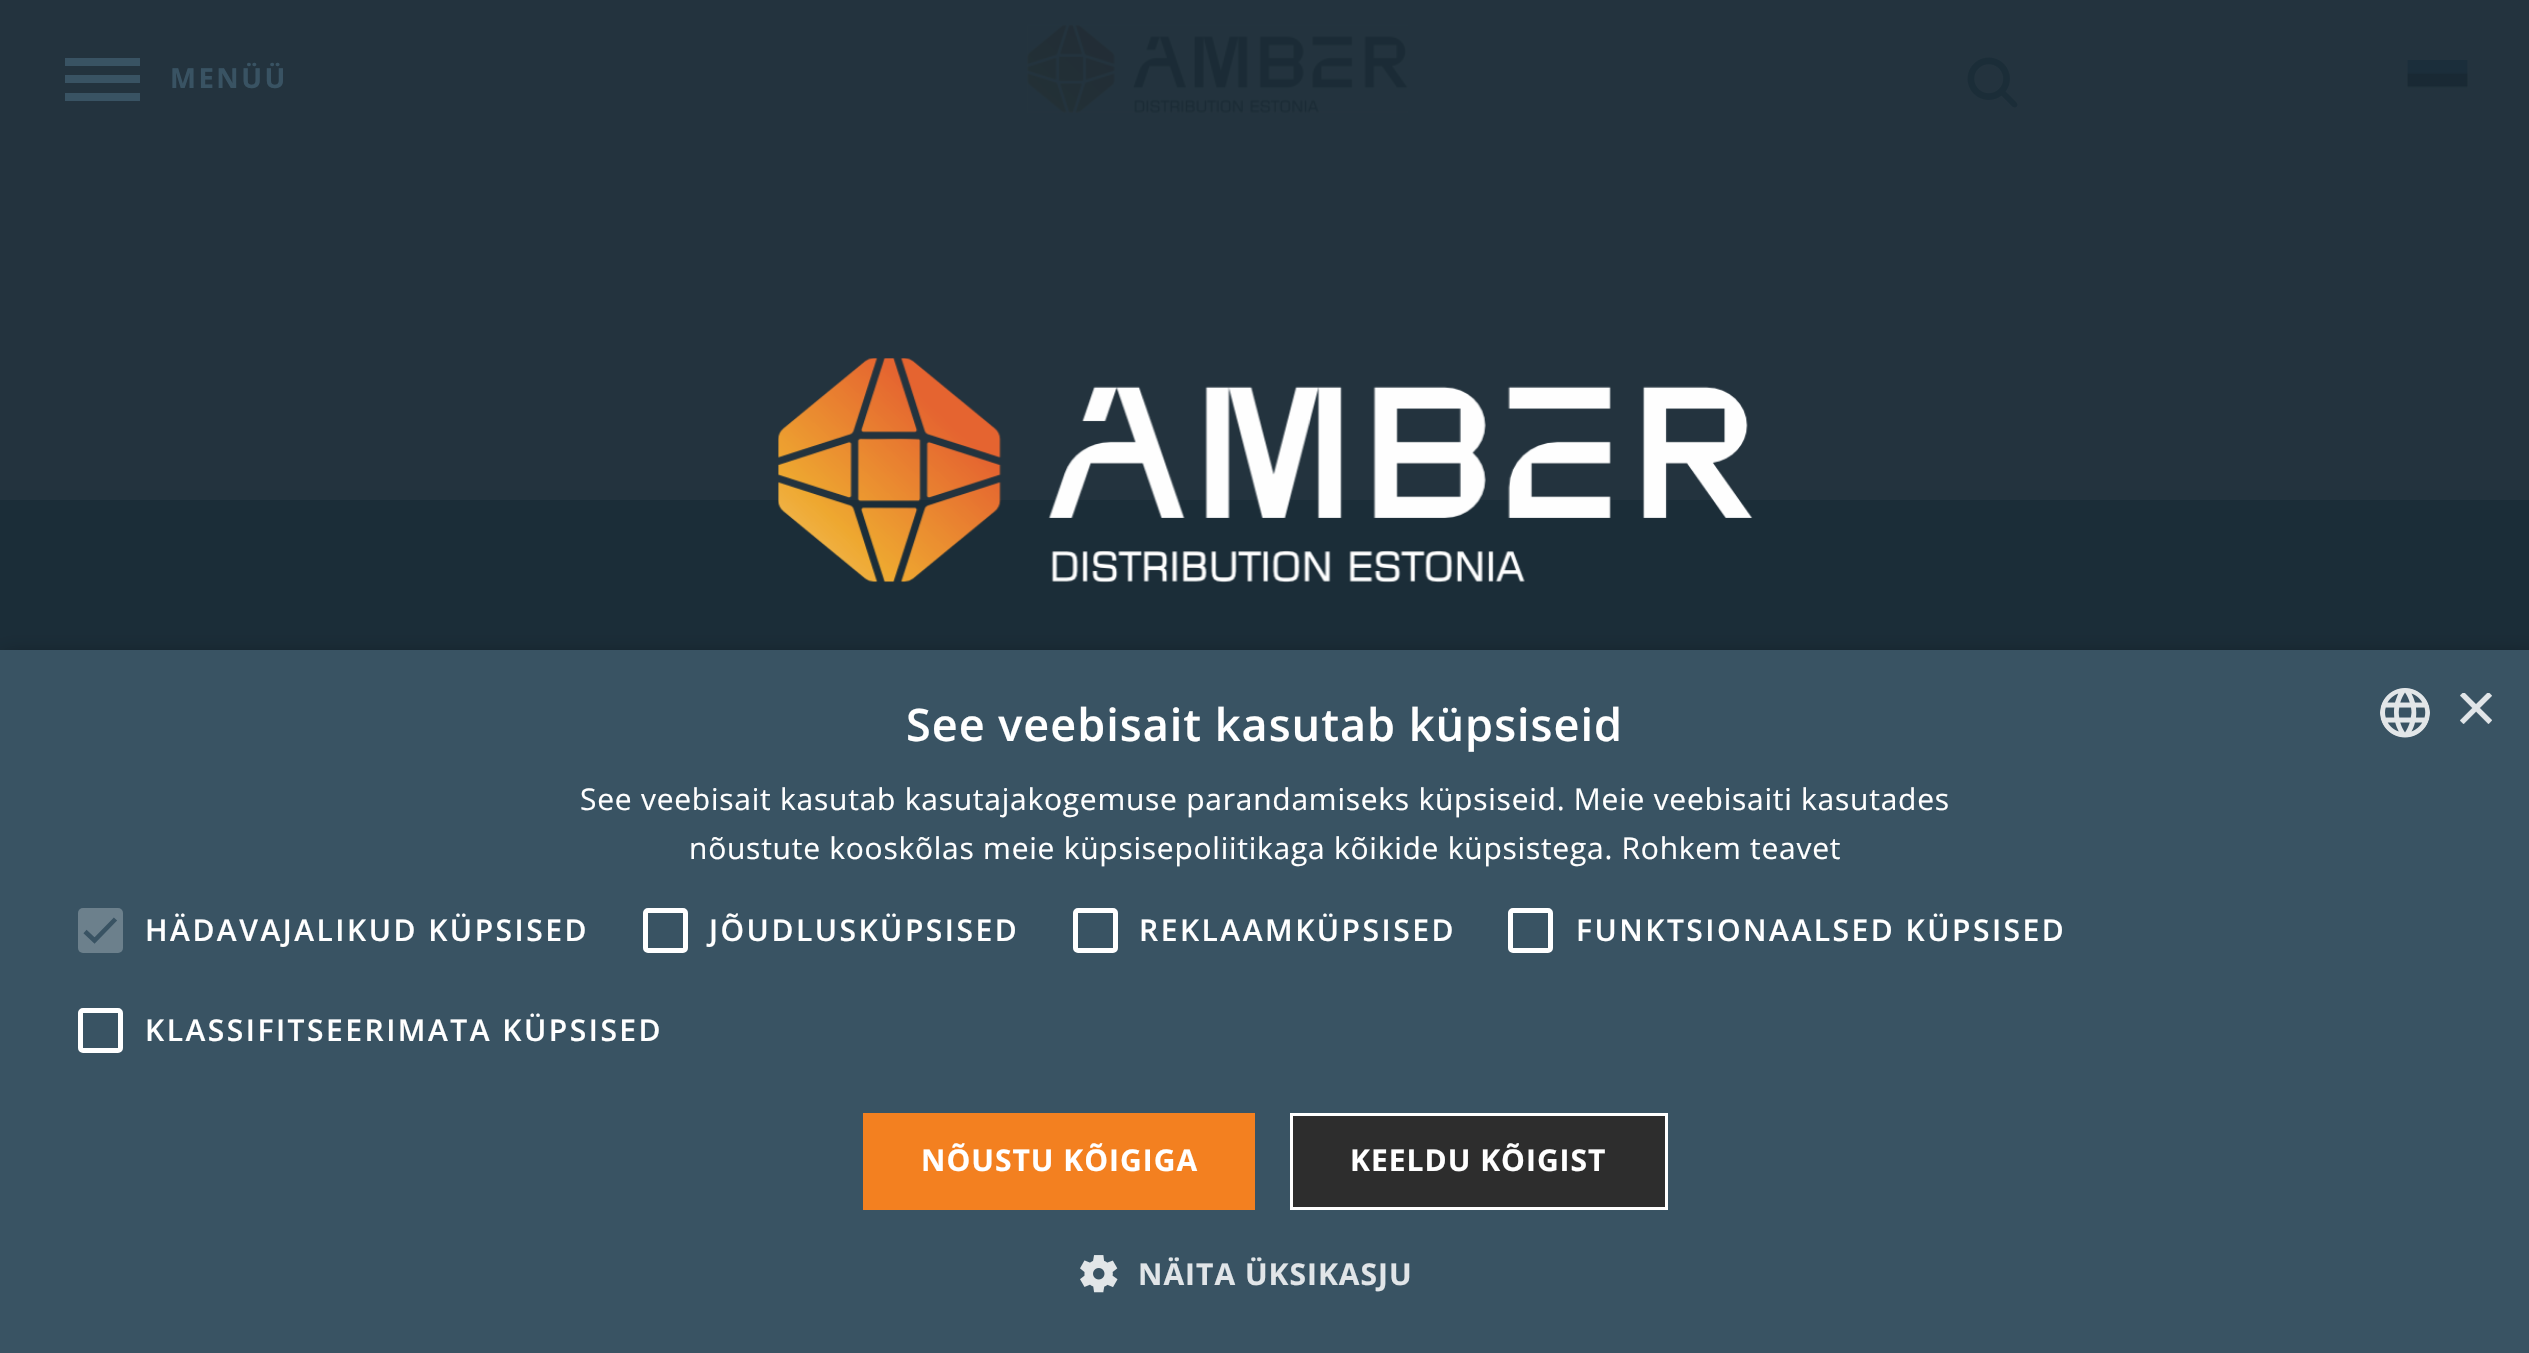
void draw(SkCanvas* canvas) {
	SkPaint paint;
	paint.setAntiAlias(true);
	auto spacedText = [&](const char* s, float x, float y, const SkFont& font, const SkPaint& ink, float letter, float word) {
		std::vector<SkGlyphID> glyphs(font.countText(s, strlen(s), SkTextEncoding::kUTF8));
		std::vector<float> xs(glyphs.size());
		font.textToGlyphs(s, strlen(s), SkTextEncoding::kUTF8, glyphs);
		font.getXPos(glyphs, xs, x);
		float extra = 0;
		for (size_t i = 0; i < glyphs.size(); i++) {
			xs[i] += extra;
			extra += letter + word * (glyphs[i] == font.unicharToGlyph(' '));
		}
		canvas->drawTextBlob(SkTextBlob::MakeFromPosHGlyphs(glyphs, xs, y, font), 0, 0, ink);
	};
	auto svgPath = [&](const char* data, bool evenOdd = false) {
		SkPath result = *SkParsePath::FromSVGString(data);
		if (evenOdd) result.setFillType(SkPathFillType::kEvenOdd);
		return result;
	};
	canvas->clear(0xff23333e);
	canvas->drawImageRect(SkImages::DeferredFromEncodedData(SkData::MakeFromFileName("img1.png")), SkRect::MakeXYWH(1027, 24, 381, 89), SkSamplingOptions());
	canvas->drawImageRect(SkImages::DeferredFromEncodedData(SkData::MakeFromFileName("img2.png")), SkRect::MakeXYWH(1967, 57, 51, 51), SkSamplingOptions());
	canvas->drawImageRect(SkImages::DeferredFromEncodedData(SkData::MakeFromFileName("img3.png")), SkRect::MakeXYWH(2407, 60, 61, 28), SkSamplingOptions());
	paint.setColor(0xff1b2d38);
	canvas->drawRect(SkRect::MakeXYWH(0, 500, 2529, 150), paint);
	paint.setColor(0xff395363);
	canvas->drawRect(SkRect::MakeXYWH(65, 58, 75, 8), paint);
	canvas->drawRect(SkRect::MakeXYWH(65, 75, 75, 8), paint);
	canvas->drawRect(SkRect::MakeXYWH(65, 93, 75, 8), paint);
	SkFont f1(fontMgr->matchFamilyStyle("Open Sans", SkFontStyle::Bold()), 27.5);
	f1.setSubpixel(true);
	spacedText("MENÜÜ", 170, 88, f1, paint, 2.5, 0);
	canvas->drawImageRect(SkImages::DeferredFromEncodedData(SkData::MakeFromFileName("img4.png")), SkRect::MakeXYWH(778, 358, 975, 225), SkSamplingOptions());
	paint.setColor(0x59000000);
	paint.setMaskFilter(SkMaskFilter::MakeBlur(kNormal_SkBlurStyle, 10));
	canvas->drawRect(SkRect::MakeXYWH(3, 655, 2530, 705), paint);
	paint.setMaskFilter(nullptr);
	paint.setColor(0xff395363);
	canvas->drawRect(SkRect::MakeXYWH(0, 650, 2529, 703), paint);
	SkFont f2(fontMgr->matchFamilyStyle("Open Sans", SkFontStyle(600, SkFontStyle::kNormal_Width, SkFontStyle::kUpright_Slant)), 45);
	f2.setSubpixel(true);
	paint.setColor(0xffffffff);
	spacedText("See veebisait kasutab küpsiseid", 906, 741, f2, paint, 1, 0);
	canvas->drawImageRect(SkImages::DeferredFromEncodedData(SkData::MakeFromFileName("img5.png")), SkRect::MakeXYWH(2380, 688, 50, 50), SkSamplingOptions());
	canvas->save();
	canvas->clipRect(SkRect::MakeXYWH(2455, 693, 38, 37));
	SkFont f3(fontMgr->matchFamilyStyle("Liberation Sans", SkFontStyle::Normal()), 72);
	f3.setSubpixel(true);
	paint.setColor(0xffe1e5e8);
	canvas->drawString("×", 2455, 732, f3, paint);
	canvas->restore();
	SkFont f4(fontMgr->matchFamilyStyle("Open Sans", SkFontStyle::Normal()), 30);
	f4.setSubpixel(true);
	paint.setColor(0xffffffff);
	spacedText("See veebisait kasutab kasutajakogemuse parandamiseks küpsiseid. Meie veebisaiti kasutades", 580, 810, f4, paint, 0.75, 0);
	spacedText("nõustute kooskõlas meie küpsisepoliitikaga kõikide küpsistega. Rohkem teavet", 689, 859, f4, paint, 0.75, 0);
	paint.setColor(0xff6c808c);
	canvas->drawRoundRect(SkRect::MakeXYWH(78, 908, 45, 45), 5, 5, paint);
	paint.setStroke(true);
	paint.setStrokeWidth(4.6);
	paint.setColor(0xff395363);
	canvas->drawPath(svgPath("M85 931.5L94.5 940.5L115.5 919"), paint);
	SkFont f5(fontMgr->matchFamilyStyle("Open Sans", SkFontStyle(600, SkFontStyle::kNormal_Width, SkFontStyle::kUpright_Slant)), 30);
	f5.setSubpixel(true);
	paint.setStroke(false);
	paint.setColor(0xffffffff);
	spacedText("HÄDAVAJALIKUD KÜPSISED", 145, 941, f5, paint, 2.5, 0);
	paint.setStroke(true);
	paint.setStrokeWidth(5);
	canvas->drawRoundRect(SkRect::MakeXYWH(645.5, 910.5, 40, 40), 2.5, 2.5, paint);
	paint.setStroke(false);
	spacedText("JÕUDLUSKÜPSISED", 709, 941, f5, paint, 2.5, 0);
	paint.setStroke(true);
	canvas->drawRoundRect(SkRect::MakeXYWH(1075.5, 910.5, 40, 40), 2.5, 2.5, paint);
	paint.setStroke(false);
	spacedText("REKLAAMKÜPSISED", 1139, 941, f5, paint, 2.5, 0);
	paint.setStroke(true);
	canvas->drawRoundRect(SkRect::MakeXYWH(1510.5, 910.5, 40, 40), 2.5, 2.5, paint);
	paint.setStroke(false);
	spacedText("FUNKTSIONAALSED KÜPSISED", 1576, 941, f5, paint, 2.5, 0);
	paint.setStroke(true);
	canvas->drawRoundRect(SkRect::MakeXYWH(80.5, 1010.5, 40, 40), 2.5, 2.5, paint);
	paint.setStroke(false);
	spacedText("KLASSIFITSEERIMATA KÜPSISED", 145, 1041, f5, paint, 2.5, 0);
	paint.setColor(0xfff38020);
	canvas->drawRect(SkRect::MakeXYWH(863, 1113, 392, 97), paint);
	SkFont f6(fontMgr->matchFamilyStyle("Open Sans", SkFontStyle::Bold()), 30);
	f6.setSubpixel(true);
	paint.setColor(0xffffffff);
	spacedText("NÕUSTU KÕIGIGA", 921, 1171, f6, paint, 1, 0);
	paint.setColor(0xff2d2d2d);
	canvas->drawRect(SkRect::MakeXYWH(1291.5, 1114.5, 375, 94), paint);
	paint.setStroke(true);
	paint.setStrokeWidth(3);
	paint.setColor(0xffffffff);
	canvas->drawRect(SkRect::MakeXYWH(1291.5, 1114.5, 375, 94), paint);
	paint.setStroke(false);
	spacedText("KEELDU KÕIGIST", 1350, 1171, f6, paint, 1, 0);
	canvas->drawImageRect(SkImages::DeferredFromEncodedData(SkData::MakeFromFileName("img6.png")), SkRect::MakeXYWH(1080, 1255, 38, 38), SkSamplingOptions());
	paint.setColor(0xffe1e5e8);
	spacedText("NÄITA ÜKSIKASJU", 1138, 1285, f6, paint, 1, 0);
}
